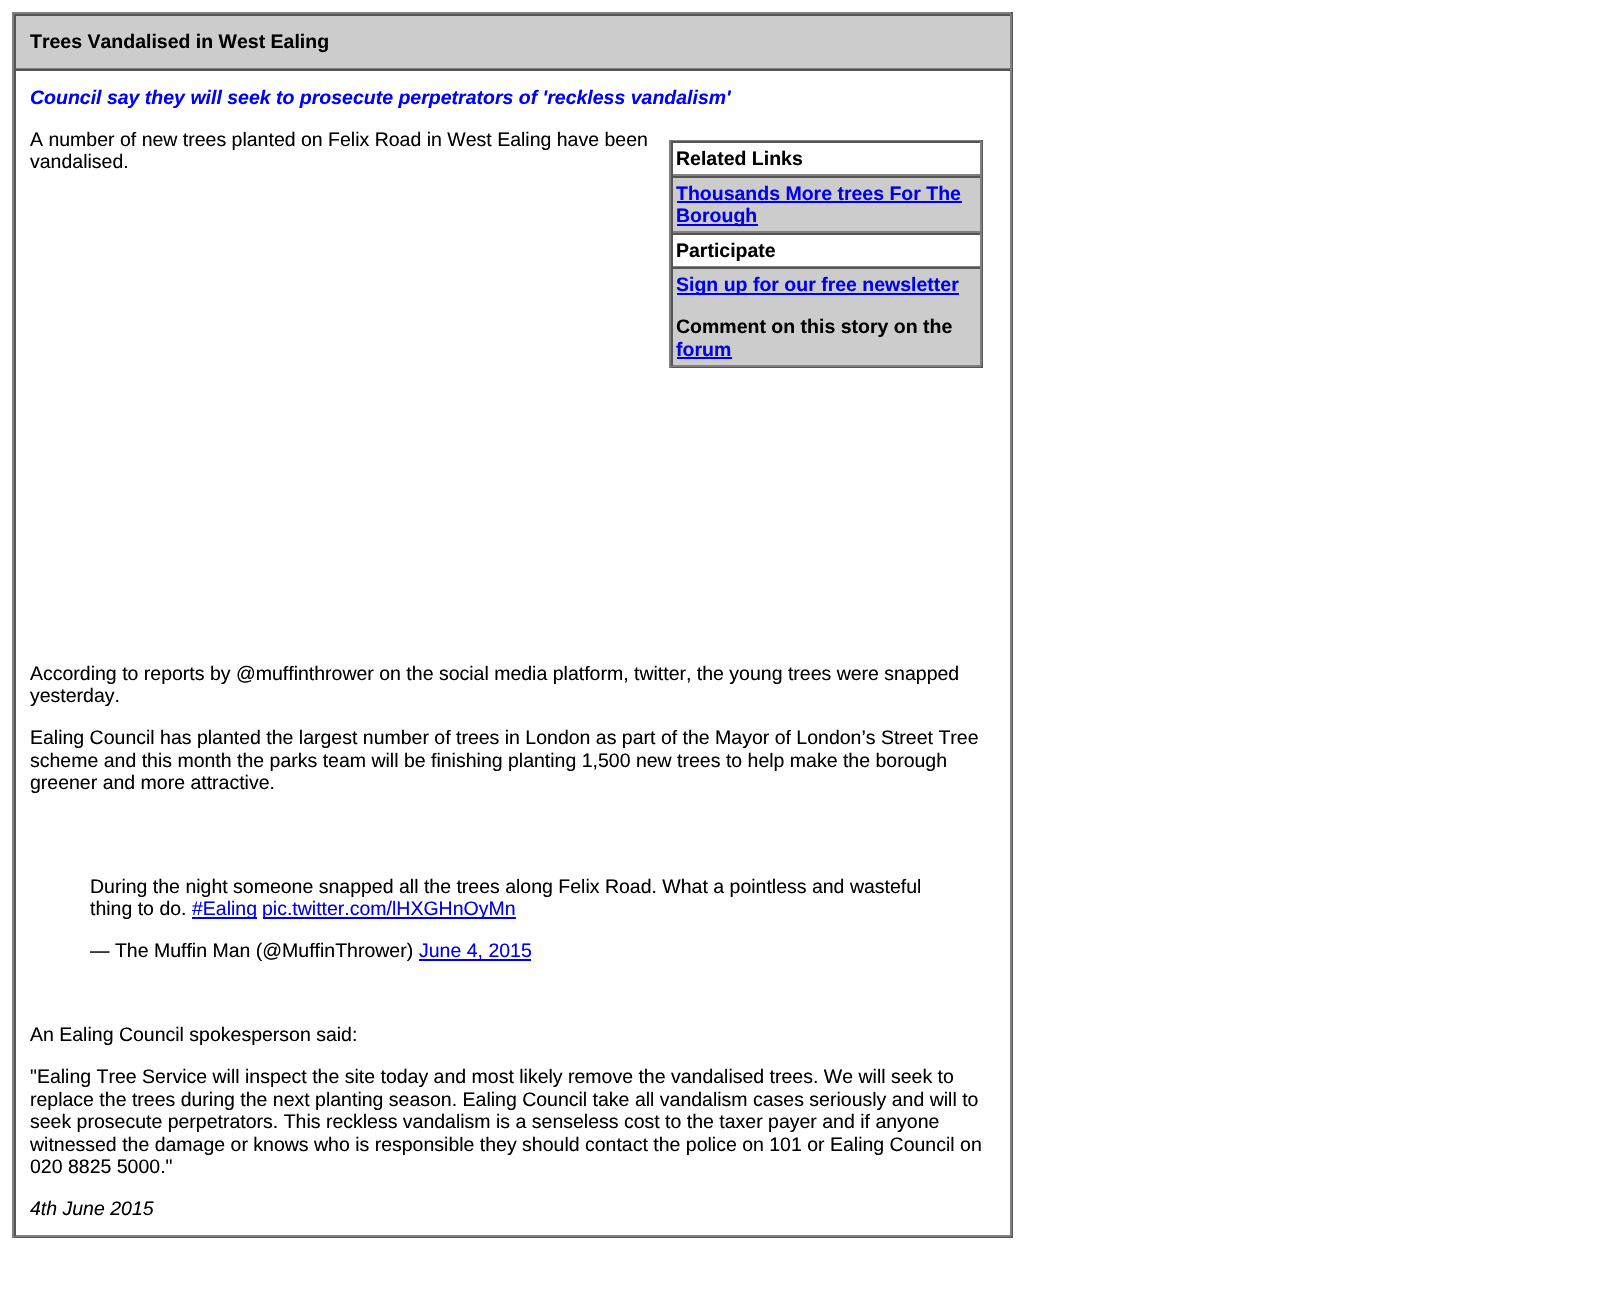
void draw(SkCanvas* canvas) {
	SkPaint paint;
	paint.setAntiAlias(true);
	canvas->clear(0xffffffff);
	paint.setColor(0xff808080);
	canvas->drawRect(SkRect::MakeXYWH(12, 12, 1001, 2), paint);
	paint.setColor(0xff555555);
	canvas->drawRect(SkRect::MakeXYWH(1011, 12, 2, 1226), paint);
	canvas->drawRect(SkRect::MakeXYWH(12, 1236, 1001, 2), paint);
	paint.setColor(0xff808080);
	canvas->drawRect(SkRect::MakeXYWH(12, 12, 2, 1226), paint);
	paint.setColor(0xffcccccc);
	canvas->drawRect(SkRect::MakeXYWH(16, 16, 994, 52), paint);
	paint.setColor(0xff555555);
	canvas->drawRect(SkRect::MakeXYWH(14, 14, 997, 2), paint);
	paint.setColor(0xff808080);
	canvas->drawRect(SkRect::MakeXYWH(1010, 14, 2, 55), paint);
	canvas->drawRect(SkRect::MakeXYWH(14, 68, 997, 1), paint);
	paint.setColor(0xff555555);
	canvas->drawRect(SkRect::MakeXYWH(14, 14, 2, 55), paint);
	SkFont f1(fontMgr->matchFamilyStyle("Liberation Sans", SkFontStyle::Bold()), 19.5);
	f1.setSubpixel(true);
	paint.setColor(0xff000000);
	canvas->drawString("Trees Vandalised in West Ealing", 30, 48, f1, paint);
	paint.setColor(0xff555555);
	canvas->drawRect(SkRect::MakeXYWH(14, 69, 997, 2), paint);
	paint.setColor(0xff808080);
	canvas->drawRect(SkRect::MakeXYWH(1010, 69, 2, 1167), paint);
	canvas->drawRect(SkRect::MakeXYWH(14, 1235, 997, 2), paint);
	paint.setColor(0xff555555);
	canvas->drawRect(SkRect::MakeXYWH(14, 69, 2, 1167), paint);
	SkFont f2(fontMgr->matchFamilyStyle("Liberation Sans", SkFontStyle::BoldItalic()), 19.5);
	f2.setSubpixel(true);
	paint.setColor(0xff0000ff);
	canvas->drawString("Council say they will seek to prosecute perpetrators of 'reckless vandalism'", 30, 104, f2, paint);
	SkFont f3(fontMgr->matchFamilyStyle("Liberation Sans", SkFontStyle::Normal()), 19.5);
	f3.setSubpixel(true);
	paint.setColor(0xff000000);
	canvas->drawString("A number of new trees planted on Felix Road in West Ealing have been", 30, 146, f3, paint);
	canvas->drawString("vandalised.", 30, 168, f3, paint);
	paint.setColor(0xff808080);
	canvas->drawRect(SkRect::MakeXYWH(669, 140, 314, 1), paint);
	paint.setColor(0xff555555);
	canvas->drawRect(SkRect::MakeXYWH(981, 140, 2, 228), paint);
	canvas->drawRect(SkRect::MakeXYWH(669, 366, 314, 2), paint);
	paint.setColor(0xff808080);
	canvas->drawRect(SkRect::MakeXYWH(669, 140, 2, 228), paint);
	paint.setColor(0xff555555);
	canvas->drawRect(SkRect::MakeXYWH(671, 141, 310, 2), paint);
	paint.setColor(0xff808080);
	canvas->drawRect(SkRect::MakeXYWH(980, 141, 2, 35), paint);
	canvas->drawRect(SkRect::MakeXYWH(671, 174, 310, 2), paint);
	paint.setColor(0xff555555);
	canvas->drawRect(SkRect::MakeXYWH(671, 141, 2, 35), paint);
	paint.setColor(0xff000000);
	canvas->drawString("Related Links", 676, 165, f1, paint);
	paint.setColor(0xffcccccc);
	canvas->drawRect(SkRect::MakeXYWH(673, 178, 307, 53), paint);
	paint.setColor(0xff555555);
	canvas->drawRect(SkRect::MakeXYWH(671, 176, 310, 2), paint);
	paint.setColor(0xff808080);
	canvas->drawRect(SkRect::MakeXYWH(980, 176, 2, 57), paint);
	canvas->drawRect(SkRect::MakeXYWH(671, 231, 310, 2), paint);
	paint.setColor(0xff555555);
	canvas->drawRect(SkRect::MakeXYWH(671, 176, 2, 57), paint);
	paint.setColor(0xff0000ee);
	canvas->drawString("Thousands More trees For The", 676, 200, f1, paint);
	canvas->drawRect(SkRect::MakeXYWH(677, 201, 285, 2), paint);
	canvas->drawRect(SkRect::MakeXYWH(677, 224, 81, 2), paint);
	canvas->drawString("Borough", 676, 222, f1, paint);
	paint.setColor(0xff555555);
	canvas->drawRect(SkRect::MakeXYWH(671, 233, 310, 2), paint);
	paint.setColor(0xff808080);
	canvas->drawRect(SkRect::MakeXYWH(980, 233, 2, 34), paint);
	canvas->drawRect(SkRect::MakeXYWH(671, 266, 310, 1), paint);
	paint.setColor(0xff555555);
	canvas->drawRect(SkRect::MakeXYWH(671, 233, 2, 34), paint);
	paint.setColor(0xff000000);
	canvas->drawString("Participate", 676, 257, f1, paint);
	paint.setColor(0xffcccccc);
	canvas->drawRect(SkRect::MakeXYWH(673, 269, 307, 96), paint);
	paint.setColor(0xff555555);
	canvas->drawRect(SkRect::MakeXYWH(671, 267, 310, 2), paint);
	paint.setColor(0xff808080);
	canvas->drawRect(SkRect::MakeXYWH(980, 267, 2, 99), paint);
	canvas->drawRect(SkRect::MakeXYWH(671, 365, 310, 2), paint);
	paint.setColor(0xff555555);
	canvas->drawRect(SkRect::MakeXYWH(671, 267, 2, 99), paint);
	paint.setColor(0xff0000ee);
	canvas->drawRect(SkRect::MakeXYWH(677, 293, 282, 2), paint);
	canvas->drawString("Sign up for our free newsletter", 676, 291, f1, paint);
	paint.setColor(0xff000000);
	canvas->drawString("Comment on this story on the", 676, 333, f1, paint);
	paint.setColor(0xff0000ee);
	canvas->drawString("forum", 676, 356, f1, paint);
	canvas->drawRect(SkRect::MakeXYWH(677, 357, 55, 2), paint);
	paint.setColor(0xff000000);
	canvas->drawString("According to reports by @muffinthrower on the social media platform, twitter, the young trees were snapped", 30, 680, f3, paint);
	canvas->drawString("yesterday.", 30, 702, f3, paint);
	canvas->drawString("Ealing Council has planted the largest number of trees in London as part of the Mayor of London’s Street Tree", 30, 744, f3, paint);
	canvas->drawString("scheme and this month the parks team will be finishing planting 1,500 new trees to help make the borough", 30, 767, f3, paint);
	canvas->drawString("greener and more attractive.", 30, 789, f3, paint);
	canvas->drawString("During the night someone snapped all the trees along Felix Road. What a pointless and wasteful", 90, 893, f3, paint);
	canvas->drawString("thing to do.", 90, 915, f3, paint);
	paint.setColor(0xff0000ee);
	canvas->drawRect(SkRect::MakeXYWH(192, 917, 65, 2), paint);
	canvas->drawString("#Ealing", 192, 915, f3, paint);
	canvas->drawRect(SkRect::MakeXYWH(263, 917, 253, 2), paint);
	canvas->drawString("pic.twitter.com/lHXGHnOyMn", 262, 915, f3, paint);
	paint.setColor(0xff000000);
	canvas->drawString("— The Muffin Man (@MuffinThrower)", 90, 957, f3, paint);
	paint.setColor(0xff0000ee);
	canvas->drawRect(SkRect::MakeXYWH(419, 959, 112, 2), paint);
	canvas->drawString("June 4, 2015", 419, 957, f3, paint);
	paint.setColor(0xff000000);
	canvas->drawString("An Ealing Council spokesperson said:", 30, 1041, f3, paint);
	canvas->drawString("\"Ealing Tree Service will inspect the site today and most likely remove the vandalised trees. We will seek to", 30, 1083, f3, paint);
	canvas->drawString("replace the trees during the next planting season. Ealing Council take all vandalism cases seriously and will to", 30, 1106, f3, paint);
	canvas->drawString("seek prosecute perpetrators. This reckless vandalism is a senseless cost to the taxer payer and if anyone", 30, 1128, f3, paint);
	canvas->drawString("witnessed the damage or knows who is responsible they should contact the police on 101 or Ealing Council on", 30, 1151, f3, paint);
	canvas->drawString("020 8825 5000.\"", 30, 1173, f3, paint);
	SkFont f4(fontMgr->matchFamilyStyle("Liberation Sans", SkFontStyle::Italic()), 19.5);
	f4.setSubpixel(true);
	canvas->drawString("4th June 2015", 30, 1215, f4, paint);
}
